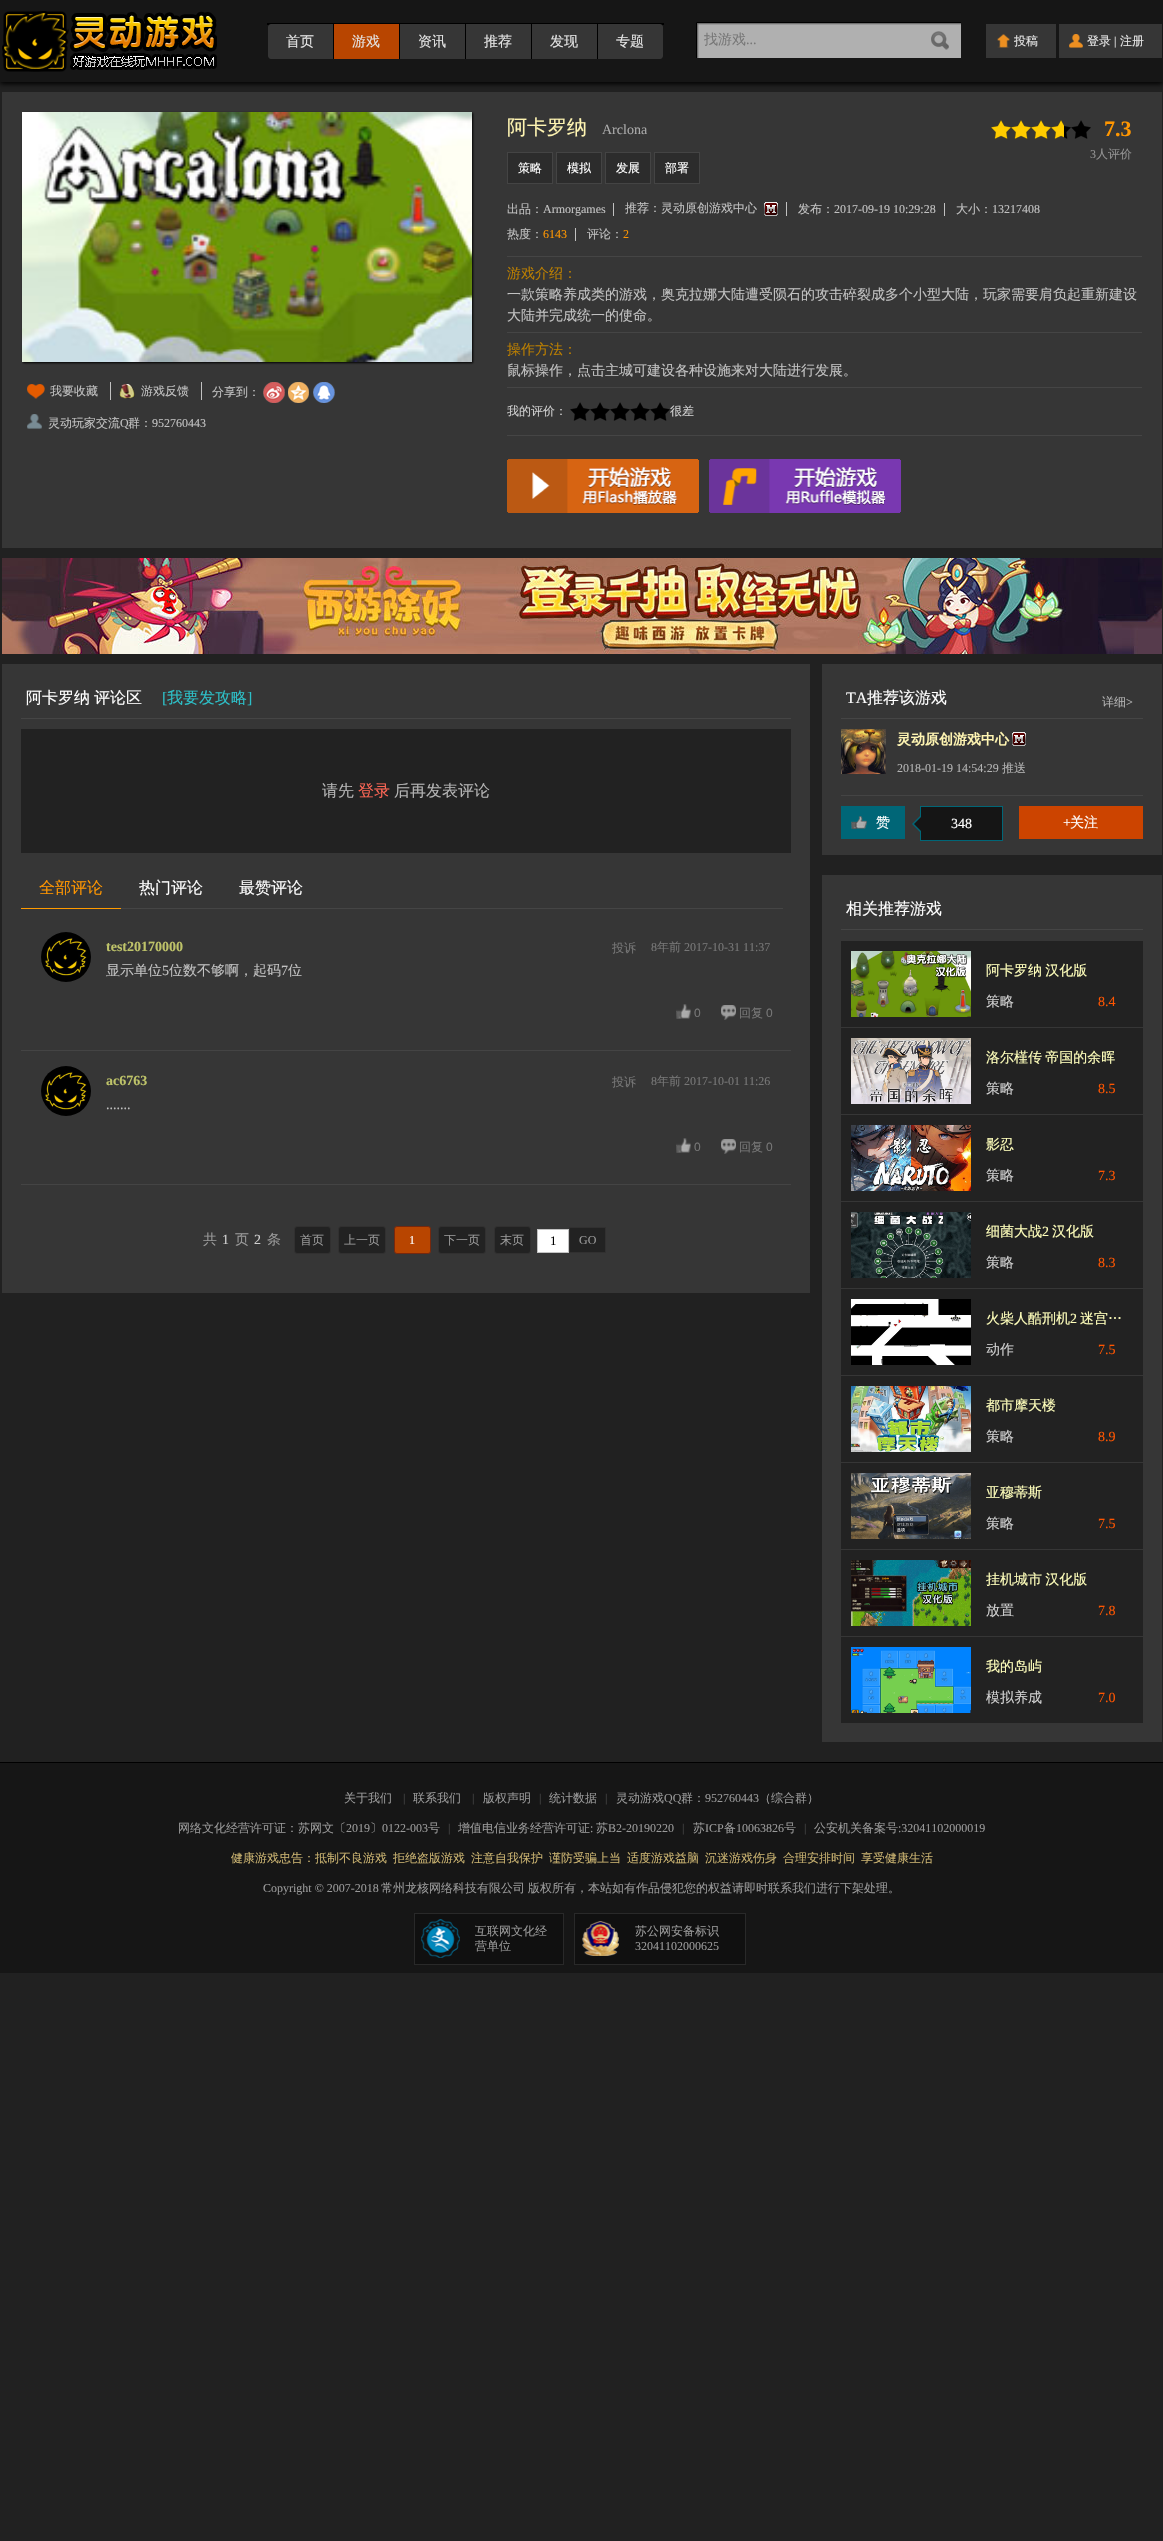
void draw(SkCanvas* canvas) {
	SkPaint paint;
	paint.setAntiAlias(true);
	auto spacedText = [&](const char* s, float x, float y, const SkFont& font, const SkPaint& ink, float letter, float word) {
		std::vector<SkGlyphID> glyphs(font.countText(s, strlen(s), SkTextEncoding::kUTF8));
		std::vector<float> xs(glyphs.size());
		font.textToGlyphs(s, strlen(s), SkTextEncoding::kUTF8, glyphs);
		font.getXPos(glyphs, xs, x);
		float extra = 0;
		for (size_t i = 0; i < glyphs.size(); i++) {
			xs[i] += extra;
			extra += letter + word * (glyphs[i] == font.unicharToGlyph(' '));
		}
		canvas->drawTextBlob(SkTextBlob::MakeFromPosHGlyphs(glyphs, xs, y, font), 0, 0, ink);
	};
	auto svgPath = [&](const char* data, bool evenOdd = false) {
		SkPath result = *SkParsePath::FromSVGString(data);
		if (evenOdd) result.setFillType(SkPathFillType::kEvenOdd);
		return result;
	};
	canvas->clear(0xff212121);
	paint.setColor(0xff000000);
	paint.setMaskFilter(SkMaskFilter::MakeBlur(kNormal_SkBlurStyle, 2.5));
	canvas->drawRect(SkRect::MakeXYWH(0, 2, 1163, 82), paint);
	paint.setMaskFilter(nullptr);
	paint.setColor(0xff161616);
	canvas->drawRect(SkRect::MakeXYWH(0, 0, 1163, 82), paint);
	canvas->drawImageRect(SkImages::DeferredFromEncodedData(SkData::MakeFromFileName("img1.png")), SkRect::MakeXYWH(2, 11, 215, 61), SkSamplingOptions());
	paint.setColor(0xff000000);
	canvas->drawRect(SkRect::MakeXYWH(267, 23, 397, 2), paint);
	paint.setColor(0xff363636);
	canvas->drawPath(svgPath("M271 24H333V59H271C269.5 59 268 57.5 268 56V27C268 25.5 269.5 24 271 24Z"), paint);
	SkFont f1(fontMgr->matchFamilyStyle("WenQuanYi Zen Hei", SkFontStyle(500, SkFontStyle::kNormal_Width, SkFontStyle::kUpright_Slant)), 14);
	f1.setSubpixel(true);
	paint.setColor(0xffe4e4e4);
	canvas->drawString("首页", 286, 46, f1, paint);
	paint.setColor(0xffb84500);
	canvas->drawRect(SkRect::MakeXYWH(334, 24, 65, 35), paint);
	paint.setColor(0xff000000);
	canvas->drawRect(SkRect::MakeXYWH(333, 24, 1, 35), paint);
	paint.setColor(0xffe4e4e4);
	canvas->drawString("游戏", 352, 46, f1, paint);
	paint.setColor(0xff363636);
	canvas->drawRect(SkRect::MakeXYWH(400, 24, 65, 35), paint);
	paint.setColor(0xff000000);
	canvas->drawRect(SkRect::MakeXYWH(399, 24, 1, 35), paint);
	paint.setColor(0xffe4e4e4);
	canvas->drawString("资讯", 418, 46, f1, paint);
	paint.setColor(0xff363636);
	canvas->drawRect(SkRect::MakeXYWH(466, 24, 65, 35), paint);
	paint.setColor(0xff000000);
	canvas->drawRect(SkRect::MakeXYWH(465, 24, 1, 35), paint);
	paint.setColor(0xffe4e4e4);
	canvas->drawString("推荐", 484, 46, f1, paint);
	paint.setColor(0xff363636);
	canvas->drawRect(SkRect::MakeXYWH(532, 24, 65, 35), paint);
	paint.setColor(0xff000000);
	canvas->drawRect(SkRect::MakeXYWH(531, 24, 1, 35), paint);
	paint.setColor(0xffe4e4e4);
	canvas->drawString("发现", 550, 46, f1, paint);
	paint.setColor(0xff363636);
	canvas->drawPath(svgPath("M597 24H660C661.5 24 663 25.5 663 27V56C663 57.5 661.5 59 660 59H597Z"), paint);
	paint.setColor(0xff000000);
	canvas->drawRect(SkRect::MakeXYWH(597, 24, 1, 35), paint);
	paint.setColor(0xffe4e4e4);
	canvas->drawString("专题", 616, 46, f1, paint);
	canvas->drawImageRect(SkImages::DeferredFromEncodedData(SkData::MakeFromFileName("img2.png")), SkRect::MakeXYWH(696, 22, 265, 36), SkSamplingOptions());
	paint.setColor(0xff777777);
	canvas->drawString("找游戏", 704, 44, f1, paint);
	SkFont f2(fontMgr->matchFamilyStyle("Liberation Serif", SkFontStyle::Normal()), 14);
	f2.setSubpixel(true);
	canvas->drawString("...", 746, 44, f2, paint);
	canvas->drawImageRect(SkImages::DeferredFromEncodedData(SkData::MakeFromFileName("img3.png")), SkRect::MakeXYWH(931, 31, 18, 19), SkSamplingOptions());
	paint.setColor(0xff363636);
	canvas->drawRect(SkRect::MakeXYWH(986, 24, 70, 34), paint);
	canvas->drawImageRect(SkImages::DeferredFromEncodedData(SkData::MakeFromFileName("img4.png")), SkRect::MakeXYWH(997, 34, 13, 14), SkSamplingOptions());
	SkFont f3(fontMgr->matchFamilyStyle("WenQuanYi Zen Hei", SkFontStyle(500, SkFontStyle::kNormal_Width, SkFontStyle::kUpright_Slant)), 12);
	f3.setSubpixel(true);
	paint.setColor(0xffe4e4e4);
	canvas->drawString("投稿", 1014, 45, f3, paint);
	paint.setColor(0xff363636);
	canvas->drawRect(SkRect::MakeXYWH(1059, 24, 103, 34), paint);
	canvas->drawImageRect(SkImages::DeferredFromEncodedData(SkData::MakeFromFileName("img5.png")), SkRect::MakeXYWH(1069, 34, 14, 14), SkSamplingOptions());
	paint.setColor(0xffe4e4e4);
	canvas->drawString("登录", 1087, 45, f3, paint);
	SkFont f4(fontMgr->matchFamilyStyle("Liberation Serif", SkFontStyle::Normal()), 12);
	f4.setSubpixel(true);
	canvas->drawString("|", 1114, 45, f4, paint);
	canvas->drawString("注册", 1120, 45, f3, paint);
	paint.setColor(0xff363636);
	canvas->drawRect(SkRect::MakeXYWH(2, 92, 1160, 456), paint);
	paint.setColor(0xff000000);
	paint.setMaskFilter(SkMaskFilter::MakeBlur(kNormal_SkBlurStyle, 1));
	canvas->drawRect(SkRect::MakeXYWH(23, 113, 450, 250), paint);
	paint.setMaskFilter(nullptr);
	canvas->drawImageRect(SkImages::DeferredFromEncodedData(SkData::MakeFromFileName("img6.png")), SkRect::MakeXYWH(22, 112, 450, 250), SkSamplingOptions());
	canvas->drawImageRect(SkImages::DeferredFromEncodedData(SkData::MakeFromFileName("img7.png")), SkRect::MakeXYWH(27, 384, 18, 15), SkSamplingOptions());
	paint.setColor(0xffc1c1c1);
	canvas->drawRect(SkRect::MakeXYWH(110, 382, 1, 18), paint);
	canvas->drawString("我要收藏", 50, 395, f3, paint);
	canvas->drawImageRect(SkImages::DeferredFromEncodedData(SkData::MakeFromFileName("img8.png")), SkRect::MakeXYWH(119, 384, 16, 15), SkSamplingOptions());
	canvas->drawRect(SkRect::MakeXYWH(201, 382, 1, 18), paint);
	canvas->drawString("游戏反馈", 141, 395, f3, paint);
	canvas->drawString("分享到：", 212, 396, f3, paint);
	canvas->drawImageRect(SkImages::DeferredFromEncodedData(SkData::MakeFromFileName("img9.png")), SkRect::MakeXYWH(263, 382, 22, 21), SkSamplingOptions());
	canvas->drawImageRect(SkImages::DeferredFromEncodedData(SkData::MakeFromFileName("img10.png")), SkRect::MakeXYWH(288, 382, 21, 21), SkSamplingOptions());
	canvas->drawImageRect(SkImages::DeferredFromEncodedData(SkData::MakeFromFileName("img11.png")), SkRect::MakeXYWH(313, 382, 22, 21), SkSamplingOptions());
	canvas->drawImageRect(SkImages::DeferredFromEncodedData(SkData::MakeFromFileName("img12.png")), SkRect::MakeXYWH(27, 414, 15, 15), SkSamplingOptions());
	canvas->drawString("灵动玩家交流", 48, 427, f3, paint);
	canvas->drawString("Q", 120, 427, f4, paint);
	canvas->drawString("群：", 128, 427, f3, paint);
	canvas->drawString("952760443", 152, 427, f4, paint);
	SkFont f5(fontMgr->matchFamilyStyle("WenQuanYi Zen Hei", SkFontStyle(500, SkFontStyle::kNormal_Width, SkFontStyle::kUpright_Slant)), 20);
	f5.setSubpixel(true);
	paint.setColor(0xfffff5b2);
	canvas->drawString("阿卡罗纳", 507, 134, f5, paint);
	paint.setColor(0xffaaaaaa);
	canvas->drawString("Arclona", 602, 134, f2, paint);
	canvas->drawImageRect(SkImages::DeferredFromEncodedData(SkData::MakeFromFileName("img13.png")), SkRect::MakeXYWH(991, 120, 100, 19), SkSamplingOptions());
	canvas->drawImageRect(SkImages::DeferredFromEncodedData(SkData::MakeFromFileName("img14.png")), SkRect::MakeXYWH(991, 120, 73, 19), SkSamplingOptions());
	SkFont f6(fontMgr->matchFamilyStyle("Liberation Serif", SkFontStyle::Bold()), 22);
	f6.setSubpixel(true);
	paint.setColor(0xffff9600);
	canvas->drawString("7.3", 1104, 136, f6, paint);
	paint.setColor(0xff929292);
	canvas->drawString("3", 1090, 158, f4, paint);
	canvas->drawString("人评价", 1096, 158, f3, paint);
	paint.setColor(0xff2c2c2c);
	canvas->drawRect(SkRect::MakeXYWH(507.5, 152.5, 45, 31), paint);
	paint.setStroke(true);
	paint.setStrokeWidth(1);
	paint.setColor(0xff444444);
	canvas->drawRect(SkRect::MakeXYWH(507.5, 152.5, 45, 31), paint);
	paint.setStroke(false);
	paint.setColor(0xffffffff);
	canvas->drawString("策略", 518, 172, f3, paint);
	paint.setColor(0xff2c2c2c);
	canvas->drawRect(SkRect::MakeXYWH(556.5, 152.5, 45, 31), paint);
	paint.setStroke(true);
	paint.setColor(0xff444444);
	canvas->drawRect(SkRect::MakeXYWH(556.5, 152.5, 45, 31), paint);
	paint.setStroke(false);
	paint.setColor(0xffffffff);
	canvas->drawString("模拟", 567, 172, f3, paint);
	paint.setColor(0xff2c2c2c);
	canvas->drawRect(SkRect::MakeXYWH(605.5, 152.5, 45, 31), paint);
	paint.setStroke(true);
	paint.setColor(0xff444444);
	canvas->drawRect(SkRect::MakeXYWH(605.5, 152.5, 45, 31), paint);
	paint.setStroke(false);
	paint.setColor(0xffffffff);
	canvas->drawString("发展", 616, 172, f3, paint);
	paint.setColor(0xff2c2c2c);
	canvas->drawRect(SkRect::MakeXYWH(654.5, 152.5, 45, 31), paint);
	paint.setStroke(true);
	paint.setColor(0xff444444);
	canvas->drawRect(SkRect::MakeXYWH(654.5, 152.5, 45, 31), paint);
	paint.setStroke(false);
	paint.setColor(0xffffffff);
	canvas->drawString("部署", 665, 172, f3, paint);
	paint.setColor(0xffc1c1c1);
	canvas->drawRect(SkRect::MakeXYWH(613, 203, 1, 13), paint);
	canvas->drawString("出品：", 507, 213, f3, paint);
	canvas->drawString("Armorgames", 543, 213, f4, paint);
	canvas->drawRect(SkRect::MakeXYWH(786, 202, 1, 14), paint);
	canvas->drawString("推荐：灵动原创游戏中心", 625, 212, f3, paint);
	canvas->drawImageRect(SkImages::DeferredFromEncodedData(SkData::MakeFromFileName("img15.png")), SkRect::MakeXYWH(764, 202, 14, 14), SkSamplingOptions());
	canvas->drawRect(SkRect::MakeXYWH(944, 203, 1, 13), paint);
	canvas->drawString("发布：", 798, 213, f3, paint);
	canvas->drawString("2017-09-19 10:29:28", 834, 213, f4, paint);
	canvas->drawString("大小：", 956, 213, f3, paint);
	canvas->drawString("13217408", 992, 213, f4, paint);
	canvas->drawRect(SkRect::MakeXYWH(575, 228, 1, 13), paint);
	canvas->drawString("热度：", 507, 238, f3, paint);
	paint.setColor(0xffff9600);
	canvas->drawString("6143", 543, 238, f4, paint);
	paint.setColor(0xffc1c1c1);
	canvas->drawString("评论：", 587, 238, f3, paint);
	paint.setColor(0xffff9600);
	canvas->drawString("2", 623, 238, f4, paint);
	paint.setColor(0xff454545);
	canvas->drawRect(SkRect::MakeXYWH(507, 256, 635, 1), paint);
	paint.setColor(0xffbc7f00);
	canvas->drawString("游戏介绍：", 507, 278, f1, paint);
	paint.setColor(0xffc1c1c1);
	canvas->drawString("一款策略养成类的游戏，奥克拉娜大陆遭受陨石的攻击碎裂成多个小型大陆，玩家需要肩负起重新建设", 507, 299, f1, paint);
	canvas->drawString("大陆并完成统一的使命。", 507, 320, f1, paint);
	paint.setColor(0xff454545);
	canvas->drawRect(SkRect::MakeXYWH(507, 332, 635, 1), paint);
	paint.setColor(0xffbc7f00);
	canvas->drawString("操作方法：", 507, 354, f1, paint);
	paint.setColor(0xffc1c1c1);
	canvas->drawString("鼠标操作，点击主城可建设各种设施来对大陆进行发展。", 507, 375, f1, paint);
	paint.setColor(0xff454545);
	canvas->drawRect(SkRect::MakeXYWH(507, 387, 635, 1), paint);
	paint.setColor(0xffd0d0d0);
	canvas->drawString("我的评价：", 507, 415, f3, paint);
	canvas->drawString("很差", 670, 415, f3, paint);
	canvas->drawImageRect(SkImages::DeferredFromEncodedData(SkData::MakeFromFileName("img16.png")), SkRect::MakeXYWH(570, 402, 100, 19), SkSamplingOptions());
	paint.setColor(0xff454545);
	canvas->drawRect(SkRect::MakeXYWH(507, 435, 635, 1), paint);
	canvas->drawImageRect(SkImages::DeferredFromEncodedData(SkData::MakeFromFileName("img17.png")), SkRect::MakeXYWH(507, 459, 192, 54), SkSamplingOptions());
	canvas->drawImageRect(SkImages::DeferredFromEncodedData(SkData::MakeFromFileName("img18.png")), SkRect::MakeXYWH(709, 459, 192, 54), SkSamplingOptions());
	canvas->drawImageRect(SkImages::DeferredFromEncodedData(SkData::MakeFromFileName("img19.png")), SkRect::MakeXYWH(2, 558, 1160, 96), SkSamplingOptions());
	paint.setColor(0xff363636);
	canvas->drawRect(SkRect::MakeXYWH(2, 664, 808, 629), paint);
	paint.setColor(0xff454545);
	canvas->drawRect(SkRect::MakeXYWH(21, 718, 770, 1), paint);
	SkFont f7(fontMgr->matchFamilyStyle("WenQuanYi Zen Hei", SkFontStyle(500, SkFontStyle::kNormal_Width, SkFontStyle::kUpright_Slant)), 16);
	f7.setSubpixel(true);
	paint.setColor(0xffffffff);
	canvas->drawString("阿卡罗纳", 26, 703, f7, paint);
	canvas->drawString("评论区", 94, 703, f7, paint);
	SkFont f8(fontMgr->matchFamilyStyle("Liberation Serif", SkFontStyle::Normal()), 16);
	f8.setSubpixel(true);
	paint.setColor(0xff2dbfc7);
	canvas->drawString("[", 162, 703, f8, paint);
	canvas->drawString("我要发攻略", 167, 703, f7, paint);
	canvas->drawString("]", 247, 703, f8, paint);
	paint.setColor(0xff222222);
	canvas->drawRect(SkRect::MakeXYWH(21, 729, 770, 124), paint);
	paint.setColor(0xffb4b4b4);
	canvas->drawString("请先", 322, 796, f7, paint);
	paint.setColor(0xffff6655);
	canvas->drawString("登录", 358, 796, f7, paint);
	paint.setColor(0xffb4b4b4);
	canvas->drawString("后再发表评论", 394, 796, f7, paint);
	paint.setColor(0xff454545);
	canvas->drawRect(SkRect::MakeXYWH(121, 908, 662, 1), paint);
	paint.setColor(0xffff9b00);
	canvas->drawRect(SkRect::MakeXYWH(21, 908, 100, 1), paint);
	paint.setColor(0xffff9600);
	canvas->drawString("全部评论", 39, 893, f7, paint);
	paint.setColor(0xffffffff);
	canvas->drawString("热门评论", 139, 893, f7, paint);
	canvas->drawString("最赞评论", 239, 893, f7, paint);
	paint.setColor(0xff444444);
	canvas->drawRect(SkRect::MakeXYWH(21, 1050, 770, 1), paint);
	canvas->drawImageRect(SkImages::DeferredFromEncodedData(SkData::MakeFromFileName("img20.png")), SkRect::MakeXYWH(41, 932, 50, 50), SkSamplingOptions());
	SkFont f9(fontMgr->matchFamilyStyle("Liberation Serif", SkFontStyle::Bold()), 14);
	f9.setSubpixel(true);
	paint.setColor(0xffbec369);
	canvas->drawString("test20170000", 106, 951, f9, paint);
	paint.setColor(0xff777777);
	canvas->drawString("投诉", 612, 952, f3, paint);
	canvas->drawString("8", 651, 951, f4, paint);
	canvas->drawString("年前", 657, 951, f3, paint);
	canvas->drawString("2017-10-31 11:37", 684, 951, f4, paint);
	paint.setColor(0xffc1c1c1);
	canvas->drawString("显示单位", 106, 975, f1, paint);
	canvas->drawString("5", 162, 975, f2, paint);
	canvas->drawString("位数不够啊，起码", 169, 975, f1, paint);
	canvas->drawString("7", 281, 975, f2, paint);
	canvas->drawString("位", 288, 975, f1, paint);
	canvas->drawImageRect(SkImages::DeferredFromEncodedData(SkData::MakeFromFileName("img21.png")), SkRect::MakeXYWH(676, 1004, 15, 15), SkSamplingOptions());
	SkFont f10(fontMgr->matchFamilyStyle("Liberation Sans", SkFontStyle::Normal()), 12);
	f10.setSubpixel(true);
	paint.setColor(0xff777777);
	canvas->drawString("0", 694, 1017, f10, paint);
	canvas->drawImageRect(SkImages::DeferredFromEncodedData(SkData::MakeFromFileName("img22.png")), SkRect::MakeXYWH(721, 1005, 15, 15), SkSamplingOptions());
	canvas->drawString("回复", 739, 1017, f3, paint);
	canvas->drawString("0", 766, 1017, f10, paint);
	paint.setColor(0xff444444);
	canvas->drawRect(SkRect::MakeXYWH(21, 1184, 770, 1), paint);
	canvas->drawImageRect(SkImages::DeferredFromEncodedData(SkData::MakeFromFileName("img20.png")), SkRect::MakeXYWH(41, 1066, 50, 50), SkSamplingOptions());
	paint.setColor(0xffbec369);
	canvas->drawString("ac6763", 106, 1085, f9, paint);
	paint.setColor(0xff777777);
	canvas->drawString("投诉", 612, 1086, f3, paint);
	canvas->drawString("8", 651, 1085, f4, paint);
	canvas->drawString("年前", 657, 1085, f3, paint);
	canvas->drawString("2017-10-01 11:26", 684, 1085, f4, paint);
	paint.setColor(0xffc1c1c1);
	canvas->drawString(".......", 106, 1109, f2, paint);
	canvas->drawImageRect(SkImages::DeferredFromEncodedData(SkData::MakeFromFileName("img21.png")), SkRect::MakeXYWH(676, 1138, 15, 15), SkSamplingOptions());
	paint.setColor(0xff777777);
	canvas->drawString("0", 694, 1151, f10, paint);
	canvas->drawImageRect(SkImages::DeferredFromEncodedData(SkData::MakeFromFileName("img22.png")), SkRect::MakeXYWH(721, 1139, 15, 15), SkSamplingOptions());
	canvas->drawString("回复", 739, 1151, f3, paint);
	canvas->drawString("0", 766, 1151, f10, paint);
	paint.setColor(0xff999999);
	canvas->drawString("共", 203, 1244, f1, paint);
	paint.setColor(0xffd0d0d0);
	canvas->drawString("1", 222, 1244, f2, paint);
	paint.setColor(0xff999999);
	canvas->drawString("页", 235, 1244, f1, paint);
	paint.setColor(0xffd0d0d0);
	canvas->drawString("2", 254, 1244, f2, paint);
	paint.setColor(0xff999999);
	canvas->drawString("条", 267, 1244, f1, paint);
	paint.setColor(0xff222222);
	canvas->drawRoundRect(SkRect::MakeXYWH(294.5, 1226.5, 36, 27), 2.5, 2.5, paint);
	paint.setStroke(true);
	paint.setColor(0xff313030);
	canvas->drawRoundRect(SkRect::MakeXYWH(294.5, 1226.5, 36, 27), 2.5, 2.5, paint);
	paint.setStroke(false);
	paint.setColor(0xff999999);
	canvas->drawString("首页", 300, 1244, f3, paint);
	paint.setColor(0xff222222);
	canvas->drawRoundRect(SkRect::MakeXYWH(338.5, 1226.5, 47, 27), 2.5, 2.5, paint);
	paint.setStroke(true);
	paint.setColor(0xff313030);
	canvas->drawRoundRect(SkRect::MakeXYWH(338.5, 1226.5, 47, 27), 2.5, 2.5, paint);
	paint.setStroke(false);
	paint.setColor(0xff999999);
	canvas->drawString("上一页", 344, 1244, f3, paint);
	paint.setColor(0xffb84500);
	canvas->drawRoundRect(SkRect::MakeXYWH(394.5, 1226.5, 36, 27), 2.5, 2.5, paint);
	paint.setStroke(true);
	paint.setColor(0xff77280d);
	canvas->drawRoundRect(SkRect::MakeXYWH(394.5, 1226.5, 36, 27), 2.5, 2.5, paint);
	paint.setStroke(false);
	paint.setColor(0xffffffff);
	canvas->drawString("1", 409, 1244, f4, paint);
	paint.setColor(0xff222222);
	canvas->drawRoundRect(SkRect::MakeXYWH(438.5, 1226.5, 47, 27), 2.5, 2.5, paint);
	paint.setStroke(true);
	paint.setColor(0xff313030);
	canvas->drawRoundRect(SkRect::MakeXYWH(438.5, 1226.5, 47, 27), 2.5, 2.5, paint);
	paint.setStroke(false);
	paint.setColor(0xff999999);
	canvas->drawString("下一页", 444, 1244, f3, paint);
	paint.setColor(0xff222222);
	canvas->drawRoundRect(SkRect::MakeXYWH(494.5, 1226.5, 36, 27), 2.5, 2.5, paint);
	paint.setStroke(true);
	paint.setColor(0xff313030);
	canvas->drawRoundRect(SkRect::MakeXYWH(494.5, 1226.5, 36, 27), 2.5, 2.5, paint);
	paint.setStroke(false);
	paint.setColor(0xff999999);
	canvas->drawString("末页", 500, 1244, f3, paint);
	paint.setColor(0xffffffff);
	canvas->drawRect(SkRect::MakeXYWH(537.5, 1229.5, 31, 23), paint);
	paint.setStroke(true);
	paint.setColor(0xffc3c3c3);
	canvas->drawRect(SkRect::MakeXYWH(537.5, 1229.5, 31, 23), paint);
	SkFont f11(fontMgr->matchFamilyStyle("Liberation Serif", SkFontStyle::Normal()), 13);
	f11.setSubpixel(true);
	paint.setStroke(false);
	paint.setColor(0xff000000);
	canvas->drawString("1", 550, 1245, f11, paint);
	paint.setColor(0xff222222);
	canvas->drawRect(SkRect::MakeXYWH(569.5, 1227.5, 36, 25), paint);
	paint.setStroke(true);
	paint.setColor(0xff313030);
	canvas->drawRect(SkRect::MakeXYWH(569.5, 1227.5, 36, 25), paint);
	paint.setStroke(false);
	paint.setColor(0xff999999);
	canvas->drawString("GO", 579, 1244, f4, paint);
	paint.setColor(0xff363636);
	canvas->drawRect(SkRect::MakeXYWH(822, 664, 340, 191), paint);
	paint.setColor(0xff454545);
	canvas->drawRect(SkRect::MakeXYWH(841, 718, 302, 1), paint);
	paint.setColor(0xffffffff);
	canvas->drawString("TA", 846, 703, f8, paint);
	canvas->drawString("推荐该游戏", 867, 703, f7, paint);
	paint.setColor(0xffb4b4b4);
	canvas->drawString("详细", 1102, 706, f3, paint);
	canvas->drawString(">", 1126, 706, f4, paint);
	canvas->drawImageRect(SkImages::DeferredFromEncodedData(SkData::MakeFromFileName("img23.png")), SkRect::MakeXYWH(841, 729, 45, 45), SkSamplingOptions());
	SkFont f12(fontMgr->matchFamilyStyle("WenQuanYi Zen Hei", SkFontStyle::Bold()), 14);
	f12.setSubpixel(true);
	paint.setColor(0xfffff5b2);
	canvas->drawString("灵动原创游戏中心", 897, 744, f12, paint);
	canvas->drawImageRect(SkImages::DeferredFromEncodedData(SkData::MakeFromFileName("img15.png")), SkRect::MakeXYWH(1012, 732, 14, 14), SkSamplingOptions());
	paint.setColor(0xffb4b4b4);
	canvas->drawString("2018-01-19 14:54:29", 897, 772, f4, paint);
	canvas->drawString("推送", 1002, 772, f3, paint);
	paint.setColor(0xff444444);
	canvas->drawRect(SkRect::MakeXYWH(841, 795, 302, 1), paint);
	paint.setColor(0xff006677);
	canvas->drawRect(SkRect::MakeXYWH(841, 806, 64, 33), paint);
	canvas->drawImageRect(SkImages::DeferredFromEncodedData(SkData::MakeFromFileName("img24.png")), SkRect::MakeXYWH(851, 816, 16, 13), SkSamplingOptions());
	paint.setColor(0xffffffff);
	canvas->drawString("赞", 876, 827, f1, paint);
	paint.setColor(0xff151515);
	canvas->drawRect(SkRect::MakeXYWH(920.5, 806.5, 82, 34), paint);
	paint.setStroke(true);
	paint.setColor(0xff006677);
	canvas->drawRect(SkRect::MakeXYWH(920.5, 806.5, 82, 34), paint);
	paint.setStroke(false);
	canvas->drawPath(svgPath("M920 816V832L912 824Z"), paint);
	paint.setColor(0xff151515);
	canvas->drawPath(svgPath("M921 817V831L914 824Z"), paint);
	paint.setColor(0xffffffff);
	canvas->drawString("348", 951, 828, f2, paint);
	paint.setColor(0xffcc4400);
	canvas->drawRect(SkRect::MakeXYWH(1019, 806, 124, 33), paint);
	paint.setColor(0xffffffff);
	canvas->drawString("+", 1063, 827, f2, paint);
	canvas->drawString("关注", 1070, 827, f1, paint);
	paint.setColor(0xff363636);
	canvas->drawRect(SkRect::MakeXYWH(822, 875, 340, 867), paint);
	paint.setColor(0xff454545);
	canvas->drawRect(SkRect::MakeXYWH(841, 929, 302, 1), paint);
	paint.setColor(0xffffffff);
	canvas->drawString("相关推荐游戏", 846, 914, f7, paint);
	paint.setColor(0xff222222);
	canvas->drawRect(SkRect::MakeXYWH(841, 941, 302, 86), paint);
	canvas->drawImageRect(SkImages::DeferredFromEncodedData(SkData::MakeFromFileName("img25.png")), SkRect::MakeXYWH(851, 951, 120, 66), SkSamplingOptions());
	paint.setColor(0xffffffbb);
	spacedText("阿卡罗纳 汉化版", 986, 975, f1, paint, 0, -1);
	paint.setColor(0xffd0d0d0);
	canvas->drawString("策略", 986, 1006, f1, paint);
	paint.setColor(0xffff5500);
	canvas->drawString("8.4", 1098, 1006, f2, paint);
	paint.setColor(0xff222222);
	canvas->drawRect(SkRect::MakeXYWH(841, 1028, 302, 86), paint);
	canvas->drawImageRect(SkImages::DeferredFromEncodedData(SkData::MakeFromFileName("img26.png")), SkRect::MakeXYWH(851, 1038, 120, 66), SkSamplingOptions());
	paint.setColor(0xffffffbb);
	spacedText("洛尔槿传 帝国的余晖", 986, 1062, f1, paint, 0, -1);
	paint.setColor(0xffd0d0d0);
	canvas->drawString("策略", 986, 1093, f1, paint);
	paint.setColor(0xffff5500);
	canvas->drawString("8.5", 1098, 1093, f2, paint);
	paint.setColor(0xff222222);
	canvas->drawRect(SkRect::MakeXYWH(841, 1115, 302, 86), paint);
	canvas->drawImageRect(SkImages::DeferredFromEncodedData(SkData::MakeFromFileName("img27.png")), SkRect::MakeXYWH(851, 1125, 120, 66), SkSamplingOptions());
	paint.setColor(0xffffffbb);
	canvas->drawString("影忍", 986, 1149, f1, paint);
	paint.setColor(0xffd0d0d0);
	canvas->drawString("策略", 986, 1180, f1, paint);
	paint.setColor(0xffff5500);
	canvas->drawString("7.3", 1098, 1180, f2, paint);
	paint.setColor(0xff222222);
	canvas->drawRect(SkRect::MakeXYWH(841, 1202, 302, 86), paint);
	canvas->drawImageRect(SkImages::DeferredFromEncodedData(SkData::MakeFromFileName("img28.png")), SkRect::MakeXYWH(851, 1212, 120, 66), SkSamplingOptions());
	paint.setColor(0xffffffbb);
	canvas->drawString("细菌大战", 986, 1236, f1, paint);
	canvas->drawString("2", 1042, 1236, f2, paint);
	canvas->drawString("汉化版", 1052, 1236, f1, paint);
	paint.setColor(0xffd0d0d0);
	canvas->drawString("策略", 986, 1267, f1, paint);
	paint.setColor(0xffff5500);
	canvas->drawString("8.3", 1098, 1267, f2, paint);
	paint.setColor(0xff222222);
	canvas->drawRect(SkRect::MakeXYWH(841, 1289, 302, 86), paint);
	canvas->drawImageRect(SkImages::DeferredFromEncodedData(SkData::MakeFromFileName("img29.png")), SkRect::MakeXYWH(851, 1299, 120, 66), SkSamplingOptions());
	paint.setColor(0xffffffbb);
	canvas->drawString("火柴人酷刑机", 986, 1323, f1, paint);
	canvas->drawString("2", 1070, 1323, f2, paint);
	canvas->drawString("迷宫…", 1080, 1323, f1, paint);
	paint.setColor(0xffd0d0d0);
	canvas->drawString("动作", 986, 1354, f1, paint);
	paint.setColor(0xffff5500);
	canvas->drawString("7.5", 1098, 1354, f2, paint);
	paint.setColor(0xff222222);
	canvas->drawRect(SkRect::MakeXYWH(841, 1376, 302, 86), paint);
	canvas->drawImageRect(SkImages::DeferredFromEncodedData(SkData::MakeFromFileName("img30.png")), SkRect::MakeXYWH(851, 1386, 120, 66), SkSamplingOptions());
	paint.setColor(0xffffffbb);
	canvas->drawString("都市摩天楼", 986, 1410, f1, paint);
	paint.setColor(0xffd0d0d0);
	canvas->drawString("策略", 986, 1441, f1, paint);
	paint.setColor(0xffff5500);
	canvas->drawString("8.9", 1098, 1441, f2, paint);
	paint.setColor(0xff222222);
	canvas->drawRect(SkRect::MakeXYWH(841, 1463, 302, 86), paint);
	canvas->drawImageRect(SkImages::DeferredFromEncodedData(SkData::MakeFromFileName("img31.png")), SkRect::MakeXYWH(851, 1473, 120, 66), SkSamplingOptions());
	paint.setColor(0xffffffbb);
	canvas->drawString("亚穆蒂斯", 986, 1497, f1, paint);
	paint.setColor(0xffd0d0d0);
	canvas->drawString("策略", 986, 1528, f1, paint);
	paint.setColor(0xffff5500);
	canvas->drawString("7.5", 1098, 1528, f2, paint);
	paint.setColor(0xff222222);
	canvas->drawRect(SkRect::MakeXYWH(841, 1550, 302, 86), paint);
	canvas->drawImageRect(SkImages::DeferredFromEncodedData(SkData::MakeFromFileName("img32.png")), SkRect::MakeXYWH(851, 1560, 120, 66), SkSamplingOptions());
	paint.setColor(0xffffffbb);
	spacedText("挂机城市 汉化版", 986, 1584, f1, paint, 0, -1);
	paint.setColor(0xffd0d0d0);
	canvas->drawString("放置", 986, 1615, f1, paint);
	paint.setColor(0xffff5500);
	canvas->drawString("7.8", 1098, 1615, f2, paint);
	paint.setColor(0xff222222);
	canvas->drawRect(SkRect::MakeXYWH(841, 1637, 302, 86), paint);
	canvas->drawImageRect(SkImages::DeferredFromEncodedData(SkData::MakeFromFileName("img33.png")), SkRect::MakeXYWH(851, 1647, 120, 66), SkSamplingOptions());
	paint.setColor(0xffffffbb);
	canvas->drawString("我的岛屿", 986, 1671, f1, paint);
	paint.setColor(0xffd0d0d0);
	canvas->drawString("模拟养成", 986, 1702, f1, paint);
	paint.setColor(0xffff5500);
	canvas->drawString("7.0", 1098, 1702, f2, paint);
	paint.setColor(0xff161616);
	canvas->drawRect(SkRect::MakeXYWH(0, 1763, 1163, 210), paint);
	paint.setColor(0xff000000);
	canvas->drawRect(SkRect::MakeXYWH(0, 1762, 1163, 1), paint);
	paint.setColor(0xff999999);
	canvas->drawString("关于我们", 344, 1802, f3, paint);
	paint.setColor(0xff484848);
	canvas->drawString("|", 403, 1802, f4, paint);
	paint.setColor(0xff999999);
	canvas->drawString("联系我们", 413, 1802, f3, paint);
	paint.setColor(0xff484848);
	canvas->drawString("|", 472, 1802, f4, paint);
	paint.setColor(0xff999999);
	canvas->drawString("版权声明", 483, 1802, f3, paint);
	paint.setColor(0xff484848);
	canvas->drawString("|", 539, 1802, f4, paint);
	paint.setColor(0xff999999);
	canvas->drawString("统计数据", 549, 1802, f3, paint);
	paint.setColor(0xff484848);
	canvas->drawString("|", 605, 1802, f4, paint);
	paint.setColor(0xff999999);
	canvas->drawString("灵动游戏", 616, 1802, f3, paint);
	canvas->drawString("QQ", 664, 1802, f4, paint);
	canvas->drawString("群：", 681, 1802, f3, paint);
	canvas->drawString("952760443", 705, 1802, f4, paint);
	canvas->drawString("（综合群）", 759, 1802, f3, paint);
	canvas->drawString("网络文化经营许可证：苏网文〔", 178, 1832, f3, paint);
	canvas->drawString("2019", 346, 1832, f4, paint);
	canvas->drawString("〕", 370, 1832, f3, paint);
	canvas->drawString("0122-003", 382, 1832, f4, paint);
	canvas->drawString("号", 428, 1832, f3, paint);
	paint.setColor(0xff484848);
	canvas->drawString("|", 448, 1832, f4, paint);
	paint.setColor(0xff999999);
	canvas->drawString("增值电信业务经营许可证", 458, 1832, f3, paint);
	canvas->drawString(":", 590, 1832, f4, paint);
	canvas->drawString("苏", 596, 1832, f3, paint);
	canvas->drawString("B2-20190220", 608, 1832, f4, paint);
	paint.setColor(0xff484848);
	canvas->drawString("|", 682, 1832, f4, paint);
	paint.setColor(0xff999999);
	canvas->drawString("苏", 693, 1832, f3, paint);
	canvas->drawString("ICP", 705, 1832, f4, paint);
	canvas->drawString("备", 724, 1832, f3, paint);
	canvas->drawString("10063826", 736, 1832, f4, paint);
	canvas->drawString("号", 784, 1832, f3, paint);
	paint.setColor(0xff484848);
	canvas->drawString("|", 804, 1832, f4, paint);
	paint.setColor(0xff999999);
	canvas->drawString("公安机关备案号", 814, 1832, f3, paint);
	canvas->drawString(":32041102000019", 898, 1832, f4, paint);
	paint.setColor(0xffc9b270);
	canvas->drawString("健康游戏忠告：抵制不良游戏", 231, 1862, f3, paint);
	canvas->drawString("拒绝盗版游戏", 393, 1862, f3, paint);
	canvas->drawString("注意自我保护", 471, 1862, f3, paint);
	canvas->drawString("谨防受骗上当", 549, 1862, f3, paint);
	canvas->drawString("适度游戏益脑", 627, 1862, f3, paint);
	canvas->drawString("沉迷游戏伤身", 705, 1862, f3, paint);
	canvas->drawString("合理安排时间", 783, 1862, f3, paint);
	canvas->drawString("享受健康生活", 861, 1862, f3, paint);
	paint.setColor(0xff999999);
	canvas->drawString("Copyright © 2007-2018", 263, 1892, f4, paint);
	canvas->drawString("常州龙核网络科技有限公司", 381, 1892, f3, paint);
	canvas->drawString("版权所有，本站如有作品侵犯您的权益请即时联系我们进行下架处理。", 528, 1892, f3, paint);
	paint.setColor(0xff101010);
	canvas->drawRect(SkRect::MakeXYWH(414.5, 1913.5, 149, 51), paint);
	paint.setStroke(true);
	paint.setColor(0xff292929);
	canvas->drawRect(SkRect::MakeXYWH(414.5, 1913.5, 149, 51), paint);
	canvas->drawImageRect(SkImages::DeferredFromEncodedData(SkData::MakeFromFileName("img34.png")), SkRect::MakeXYWH(421, 1919, 39, 39), SkSamplingOptions());
	paint.setStroke(false);
	paint.setColor(0xff999999);
	canvas->drawString("互联网文化经", 475, 1935, f3, paint);
	canvas->drawString("营单位", 475, 1950, f3, paint);
	paint.setColor(0xff101010);
	canvas->drawRect(SkRect::MakeXYWH(574.5, 1913.5, 171, 51), paint);
	paint.setStroke(true);
	paint.setColor(0xff292929);
	canvas->drawRect(SkRect::MakeXYWH(574.5, 1913.5, 171, 51), paint);
	canvas->drawImageRect(SkImages::DeferredFromEncodedData(SkData::MakeFromFileName("img35.png")), SkRect::MakeXYWH(582, 1921, 37, 35), SkSamplingOptions());
	paint.setStroke(false);
	paint.setColor(0xff999999);
	canvas->drawString("苏公网安备标识", 635, 1935, f3, paint);
	canvas->drawString("32041102000625", 635, 1950, f4, paint);
}
